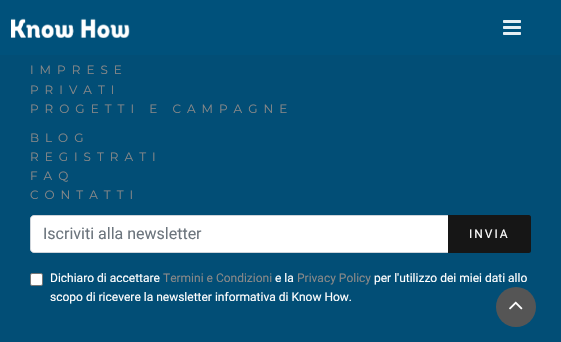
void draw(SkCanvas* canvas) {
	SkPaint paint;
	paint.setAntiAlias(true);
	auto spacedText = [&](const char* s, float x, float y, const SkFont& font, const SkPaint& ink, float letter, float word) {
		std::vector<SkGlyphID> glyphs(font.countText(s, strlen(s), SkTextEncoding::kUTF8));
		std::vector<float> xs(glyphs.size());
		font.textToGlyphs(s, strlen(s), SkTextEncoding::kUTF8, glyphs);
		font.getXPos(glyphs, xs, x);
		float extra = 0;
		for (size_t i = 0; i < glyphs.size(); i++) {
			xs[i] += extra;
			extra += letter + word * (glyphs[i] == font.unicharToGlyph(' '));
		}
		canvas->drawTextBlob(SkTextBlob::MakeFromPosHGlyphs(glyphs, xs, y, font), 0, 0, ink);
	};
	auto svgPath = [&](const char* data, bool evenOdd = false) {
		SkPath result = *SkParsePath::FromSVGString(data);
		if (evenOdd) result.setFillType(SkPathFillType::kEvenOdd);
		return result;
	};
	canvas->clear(0xff024e76);
	paint.setColor(0xff00517b);
	canvas->drawRect(SkRect::MakeXYWH(0, 0, 561, 55), paint);
	canvas->drawImageRect(SkImages::DeferredFromEncodedData(SkData::MakeFromFileName("img1.png")), SkRect::MakeXYWH(11, 18, 119, 20), SkSamplingOptions());
	canvas->drawImageRect(SkImages::DeferredFromEncodedData(SkData::MakeFromFileName("img2.png")), SkRect::MakeXYWH(503, 20, 18, 15), SkSamplingOptions());
	SkFont f1(fontMgr->matchFamilyStyle("Montserrat", SkFontStyle::Normal()), 12);
	f1.setSubpixel(true);
	paint.setColor(0xff888888);
	spacedText("IMPRESE", 30, 74, f1, paint, 6, 0);
	spacedText("PRIVATI", 30, 94, f1, paint, 6, 0);
	spacedText("PROGETTI E CAMPAGNE", 30, 113, f1, paint, 6, 0);
	spacedText("BLOG", 30, 142, f1, paint, 6, 0);
	spacedText("REGISTRATI", 30, 161, f1, paint, 6, 0);
	spacedText("FAQ", 30, 180, f1, paint, 6, 0);
	spacedText("CONTATTI", 30, 199, f1, paint, 6, 0);
	paint.setColor(0xffffffff);
	canvas->drawPath(svgPath("M34 215.5H448.5V252.5H34C32 252.5 30.5 251 30.5 249V219C30.5 217 32 215.5 34 215.5Z"), paint);
	paint.setStroke(true);
	paint.setStrokeWidth(1);
	paint.setColor(0xffced4da);
	canvas->drawPath(svgPath("M34 215.5H448.5V252.5H34C32 252.5 30.5 251 30.5 249V219C30.5 217 32 215.5 34 215.5Z"), paint);
	SkFont f2(fontMgr->matchFamilyStyle("Roboto", SkFontStyle::Normal()), 16);
	f2.setSubpixel(true);
	paint.setStroke(false);
	paint.setColor(0xff6c757d);
	canvas->drawString("Iscriviti alla newsletter", 43, 239, f2, paint);
	paint.setColor(0xff161616);
	canvas->drawPath(svgPath("M448 215H529C530 215 531 216 531 217V251C531 252 530 253 529 253H448Z"), paint);
	SkFont f3(fontMgr->matchFamilyStyle("Roboto", SkFontStyle::Normal()), 12);
	f3.setSubpixel(true);
	paint.setColor(0xffffffff);
	spacedText("INVIA", 469, 238, f3, paint, 2, 0);
	canvas->drawRoundRect(SkRect::MakeXYWH(30.5, 273.5, 12, 12), 1.5, 1.5, paint);
	paint.setStroke(true);
	paint.setColor(0xff767676);
	canvas->drawRoundRect(SkRect::MakeXYWH(30.5, 273.5, 12, 12), 1.5, 1.5, paint);
	paint.setStroke(false);
	paint.setColor(0xffffffff);
	canvas->drawString("Dichiaro di accettare", 50, 282, f3, paint);
	paint.setColor(0xff888888);
	canvas->drawString("Termini e Condizioni", 163, 282, f3, paint);
	paint.setColor(0xffffffff);
	canvas->drawString("e la", 275, 282, f3, paint);
	paint.setColor(0xff888888);
	canvas->drawString("Privacy Policy", 297, 282, f3, paint);
	paint.setColor(0xffffffff);
	canvas->drawString("per l'utilizzo dei miei dati allo", 374, 282, f3, paint);
	canvas->drawString("scopo di ricevere la newsletter informativa di Know How.", 50, 301, f3, paint);
	paint.setColor(0xff555555);
	canvas->drawCircle(516, 307, 20, paint);
	canvas->drawImageRect(SkImages::DeferredFromEncodedData(SkData::MakeFromFileName("img3.png")), SkRect::MakeXYWH(509, 301, 14, 9), SkSamplingOptions());
}
